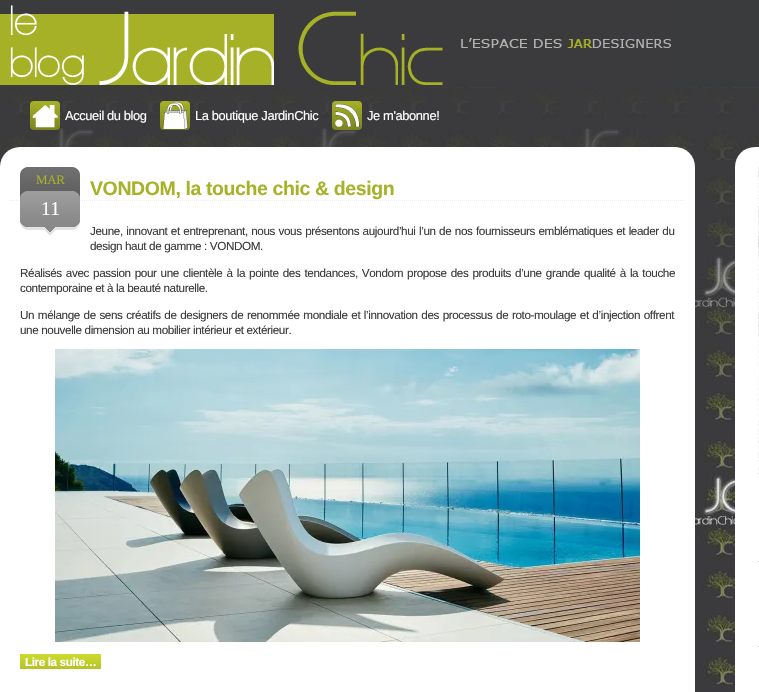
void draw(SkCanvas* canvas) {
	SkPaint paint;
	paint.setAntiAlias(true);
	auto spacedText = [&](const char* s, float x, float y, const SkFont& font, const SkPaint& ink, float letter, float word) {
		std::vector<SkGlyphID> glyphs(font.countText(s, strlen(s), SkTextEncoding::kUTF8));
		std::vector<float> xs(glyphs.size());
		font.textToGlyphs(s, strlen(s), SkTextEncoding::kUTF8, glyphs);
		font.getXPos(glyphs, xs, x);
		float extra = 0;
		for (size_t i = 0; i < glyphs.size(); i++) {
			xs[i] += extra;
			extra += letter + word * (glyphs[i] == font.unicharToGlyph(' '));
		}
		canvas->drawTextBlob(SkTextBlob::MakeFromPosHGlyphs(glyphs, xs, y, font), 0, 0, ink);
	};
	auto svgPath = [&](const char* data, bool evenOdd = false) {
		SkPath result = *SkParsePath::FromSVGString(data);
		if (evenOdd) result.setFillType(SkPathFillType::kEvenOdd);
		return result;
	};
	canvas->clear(0xffffffff);
	canvas->drawImageRect(SkImages::DeferredFromEncodedData(SkData::MakeFromFileName("img1.png")), SkRect::MakeXYWH(0, 87, 759, 605), SkSamplingOptions());
	paint.setColor(0xff3a3b3c);
	canvas->drawRect(SkRect::MakeXYWH(0, 0, 759, 87), paint);
	canvas->drawImageRect(SkImages::DeferredFromEncodedData(SkData::MakeFromFileName("img2.png")), SkRect::MakeXYWH(0, 5, 671, 80), SkSamplingOptions());
	canvas->drawImageRect(SkImages::DeferredFromEncodedData(SkData::MakeFromFileName("img3.png")), SkRect::MakeXYWH(30, 101, 30, 29), SkSamplingOptions());
	SkFont f1(fontMgr->matchFamilyStyle("Liberation Sans", SkFontStyle::Normal()), 12.9);
	f1.setSubpixel(true);
	paint.setColor(0xffffffff);
	spacedText("Accueil du blog", 65, 120, f1, paint, -0.39, 0);
	canvas->drawImageRect(SkImages::DeferredFromEncodedData(SkData::MakeFromFileName("img4.png")), SkRect::MakeXYWH(160, 101, 30, 29), SkSamplingOptions());
	spacedText("La boutique JardinChic", 195, 120, f1, paint, -0.39, 0);
	canvas->drawImageRect(SkImages::DeferredFromEncodedData(SkData::MakeFromFileName("img5.png")), SkRect::MakeXYWH(332, 101, 30, 29), SkSamplingOptions());
	spacedText("Je m'abonne!", 367, 120, f1, paint, -0.39, 0);
	canvas->drawRoundRect(SkRect::MakeXYWH(0, 147, 695, 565), 20, 20, paint);
	paint.setStroke(true);
	paint.setStrokeWidth(1);
	paint.setColor(0xffeeeeee);
	paint.setPathEffect(SkDashPathEffect::Make({{1, 1}}, 0));
	canvas->drawPath(svgPath("M10 200.5H685"), paint);
	paint.setPathEffect(nullptr);
	canvas->drawImageRect(SkImages::DeferredFromEncodedData(SkData::MakeFromFileName("img6.png")), SkRect::MakeXYWH(20, 167, 60, 68), SkSamplingOptions());
	SkFont f2(fontMgr->matchFamilyStyle("Liberation Serif", SkFontStyle::Normal()), 13);
	f2.setSubpixel(true);
	paint.setStroke(false);
	paint.setColor(0xffa6b227);
	spacedText("MAR", 36, 184, f2, paint, -0.39, 0);
	SkFont f3(fontMgr->matchFamilyStyle("Liberation Serif", SkFontStyle::Normal()), 19.5);
	f3.setSubpixel(true);
	paint.setColor(0xffffffff);
	spacedText("11", 41, 215, f3, paint, -0.39, 0);
	SkFont f4(fontMgr->matchFamilyStyle("Liberation Sans", SkFontStyle::Bold()), 19.5);
	f4.setSubpixel(true);
	paint.setColor(0xffa6b227);
	spacedText("VONDOM, la touche chic & design", 90, 195, f4, paint, -0.39, 0);
	SkFont f5(fontMgr->matchFamilyStyle("Liberation Sans", SkFontStyle::Normal()), 11.7);
	f5.setSubpixel(true);
	paint.setColor(0xff3a3b3c);
	spacedText("Jeune, innovant et entreprenant, nous vous présentons aujourd’hui l’un de nos fournisseurs emblématiques et leader du", 90, 235, f5, paint, -0.39, 0.6);
	spacedText("design haut de gamme : VONDOM.", 90, 250, f5, paint, -0.39, 0);
	spacedText("Réalisés avec passion pour une clientèle à la pointe des tendances, Vondom propose des produits d’une grande qualité à la touche", 20, 277, f5, paint, -0.39, 1.2);
	spacedText("contemporaine et à la beauté naturelle.", 20, 292, f5, paint, -0.39, 0);
	spacedText("Un mélange de sens créatifs de designers de renommée mondiale et l’innovation des processus de roto-moulage et d’injection offrent", 20, 319, f5, paint, -0.39, 0.75);
	spacedText("une nouvelle dimension au mobilier intérieur et extérieur.", 20, 334, f5, paint, -0.39, 0);
	canvas->drawImageRect(SkImages::DeferredFromEncodedData(SkData::MakeFromFileName("img7.png")), SkRect::MakeXYWH(55, 349, 585, 293), SkSamplingOptions());
	canvas->drawImageRect(SkImages::DeferredFromEncodedData(SkData::MakeFromFileName("img8.png")), SkRect::MakeXYWH(20, 654, 81, 15), SkSamplingOptions());
	SkFont f6(fontMgr->matchFamilyStyle("Liberation Sans", SkFontStyle::Bold()), 11.7);
	f6.setSubpixel(true);
	paint.setColor(0xffffffff);
	spacedText("Lire la suite…", 25, 666, f6, paint, -0.39, 0);
	canvas->drawRoundRect(SkRect::MakeXYWH(735, 147, 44, 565), 20, 20, paint);
	canvas->drawImageRect(SkImages::DeferredFromEncodedData(SkData::MakeFromFileName("img9.png")), SkRect::MakeXYWH(758, 166, 1, 312), SkSamplingOptions());
	paint.setStroke(true);
	paint.setColor(0xffcccccc);
	paint.setPathEffect(SkDashPathEffect::Make({{1, 1}}, 0));
	canvas->drawPath(svgPath("M758 561.5H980"), paint);
	paint.setPathEffect(nullptr);
	paint.setPathEffect(SkDashPathEffect::Make({{1, 1}}, 0));
	canvas->drawPath(svgPath("M758 646.5H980"), paint);
	paint.setPathEffect(nullptr);
}
